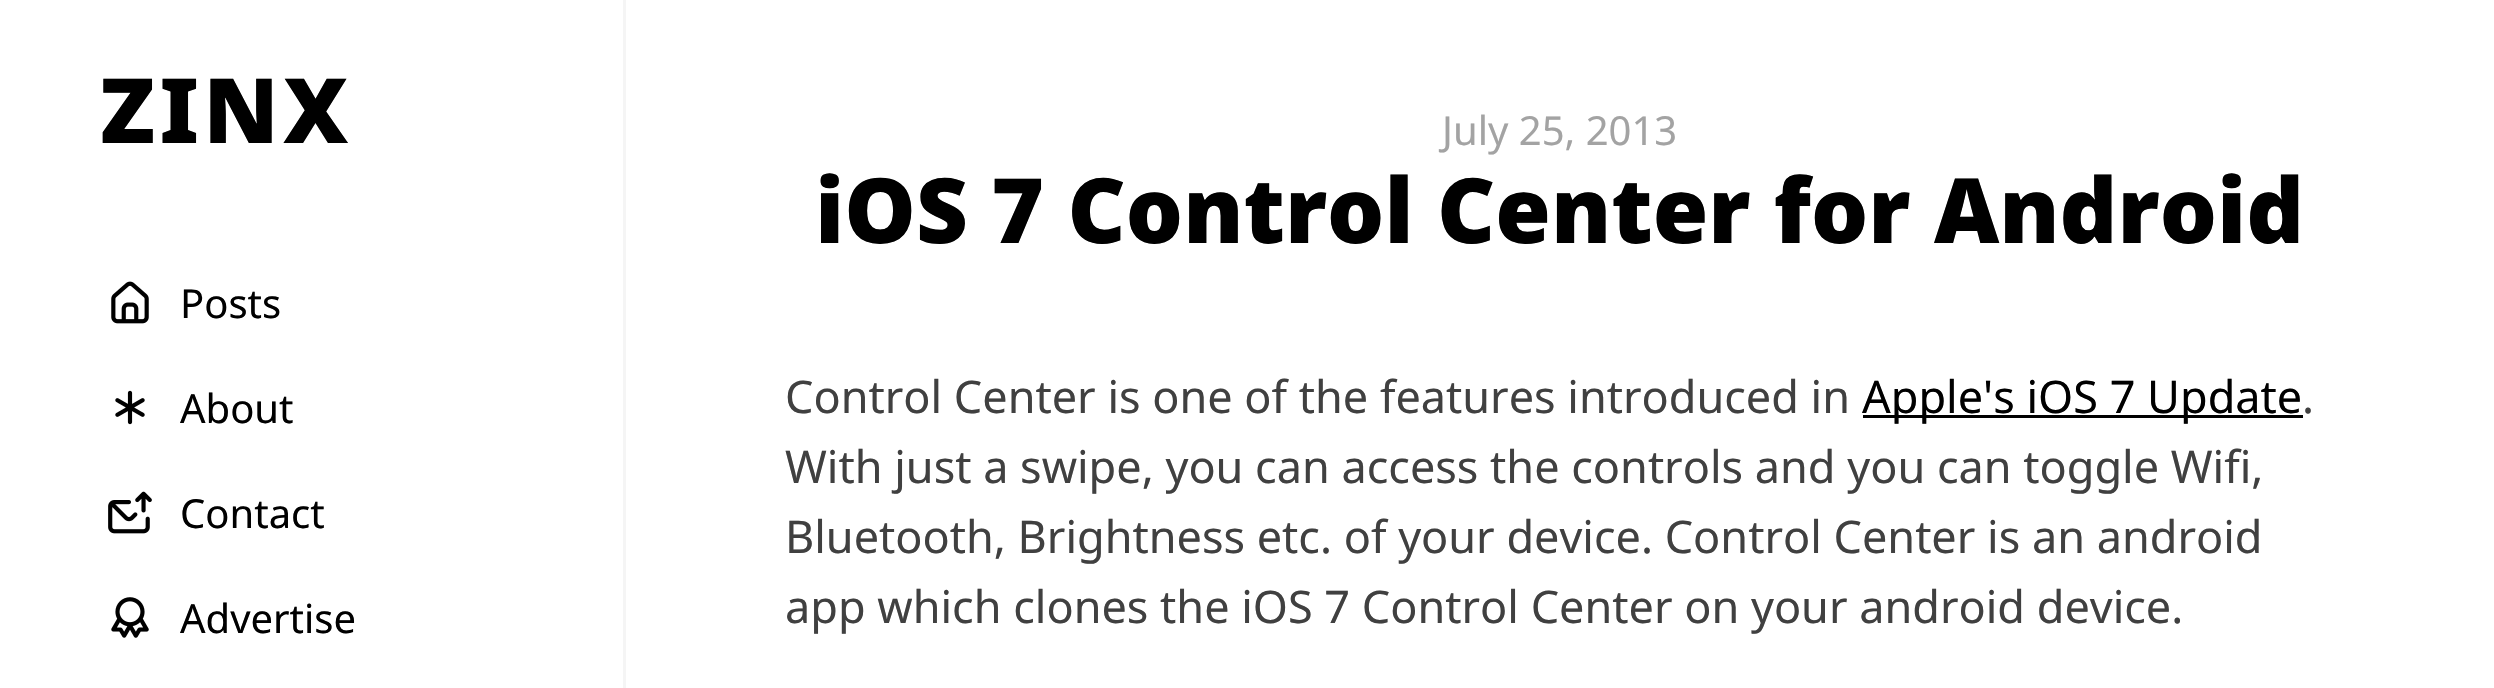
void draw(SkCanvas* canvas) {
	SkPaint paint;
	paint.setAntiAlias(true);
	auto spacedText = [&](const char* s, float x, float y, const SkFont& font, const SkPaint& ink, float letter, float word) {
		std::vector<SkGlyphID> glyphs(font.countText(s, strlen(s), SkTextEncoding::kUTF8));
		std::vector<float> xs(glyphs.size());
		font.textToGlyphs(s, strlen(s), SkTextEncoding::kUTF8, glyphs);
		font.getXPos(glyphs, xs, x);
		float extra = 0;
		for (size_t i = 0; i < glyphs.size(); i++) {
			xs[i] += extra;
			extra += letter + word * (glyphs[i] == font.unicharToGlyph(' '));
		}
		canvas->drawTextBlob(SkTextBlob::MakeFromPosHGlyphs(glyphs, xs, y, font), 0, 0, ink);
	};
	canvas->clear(0xffffffff);
	paint.setColor(0xfff5f5f5);
	canvas->drawRect(SkRect::MakeXYWH(623, 0, 3, 688), paint);
	SkFont f1(fontMgr->matchFamilyStyle("Noto Sans", SkFontStyle(900, SkFontStyle::kNormal_Width, SkFontStyle::kUpright_Slant)), 90);
	f1.setSubpixel(true);
	paint.setColor(0xff000000);
	spacedText("ZINX", 100, 143, f1, paint, 4.5, 0);
	canvas->drawImageRect(SkImages::DeferredFromEncodedData(SkData::MakeFromFileName("img1.png")), SkRect::MakeXYWH(111, 281, 38, 43), SkSamplingOptions());
	SkFont f2(fontMgr->matchFamilyStyle("Noto Sans", SkFontStyle::Normal()), 40);
	f2.setSubpixel(true);
	canvas->drawString("Posts", 180, 318, f2, paint);
	canvas->drawImageRect(SkImages::DeferredFromEncodedData(SkData::MakeFromFileName("img2.png")), SkRect::MakeXYWH(115, 390, 30, 35), SkSamplingOptions());
	canvas->drawString("About", 180, 423, f2, paint);
	canvas->drawImageRect(SkImages::DeferredFromEncodedData(SkData::MakeFromFileName("img3.png")), SkRect::MakeXYWH(108, 491, 44, 43), SkSamplingOptions());
	canvas->drawString("Contact", 180, 528, f2, paint);
	canvas->drawImageRect(SkImages::DeferredFromEncodedData(SkData::MakeFromFileName("img4.png")), SkRect::MakeXYWH(111, 597, 38, 41), SkSamplingOptions());
	canvas->drawString("Advertise", 180, 633, f2, paint);
	paint.setColor(0xffa3a3a3);
	canvas->drawString("July 25, 2013", 1442, 145, f2, paint);
	paint.setColor(0xff000000);
	canvas->drawString("iOS 7 Control Center for Android", 815, 243, f1, paint);
	SkFont f3(fontMgr->matchFamilyStyle("Noto Sans", SkFontStyle::Normal()), 45);
	f3.setSubpixel(true);
	paint.setColor(0xff404040);
	canvas->drawString("Control Center is one of the features introduced in", 785, 413, f3, paint);
	paint.setColor(0xff000000);
	canvas->drawRect(SkRect::MakeXYWH(1863, 415, 440, 3), paint);
	canvas->drawString("Apple's iOS 7 Update", 1862, 413, f3, paint);
	paint.setColor(0xff404040);
	canvas->drawString(".", 2302, 413, f3, paint);
	canvas->drawString("With just a swipe, you can access the controls and you can toggle Wifi,", 785, 483, f3, paint);
	canvas->drawString("Bluetooth, Brightness etc. of your device. Control Center is an android", 785, 553, f3, paint);
	canvas->drawString("app which clones the iOS 7 Control Center on your android device.", 785, 623, f3, paint);
}
